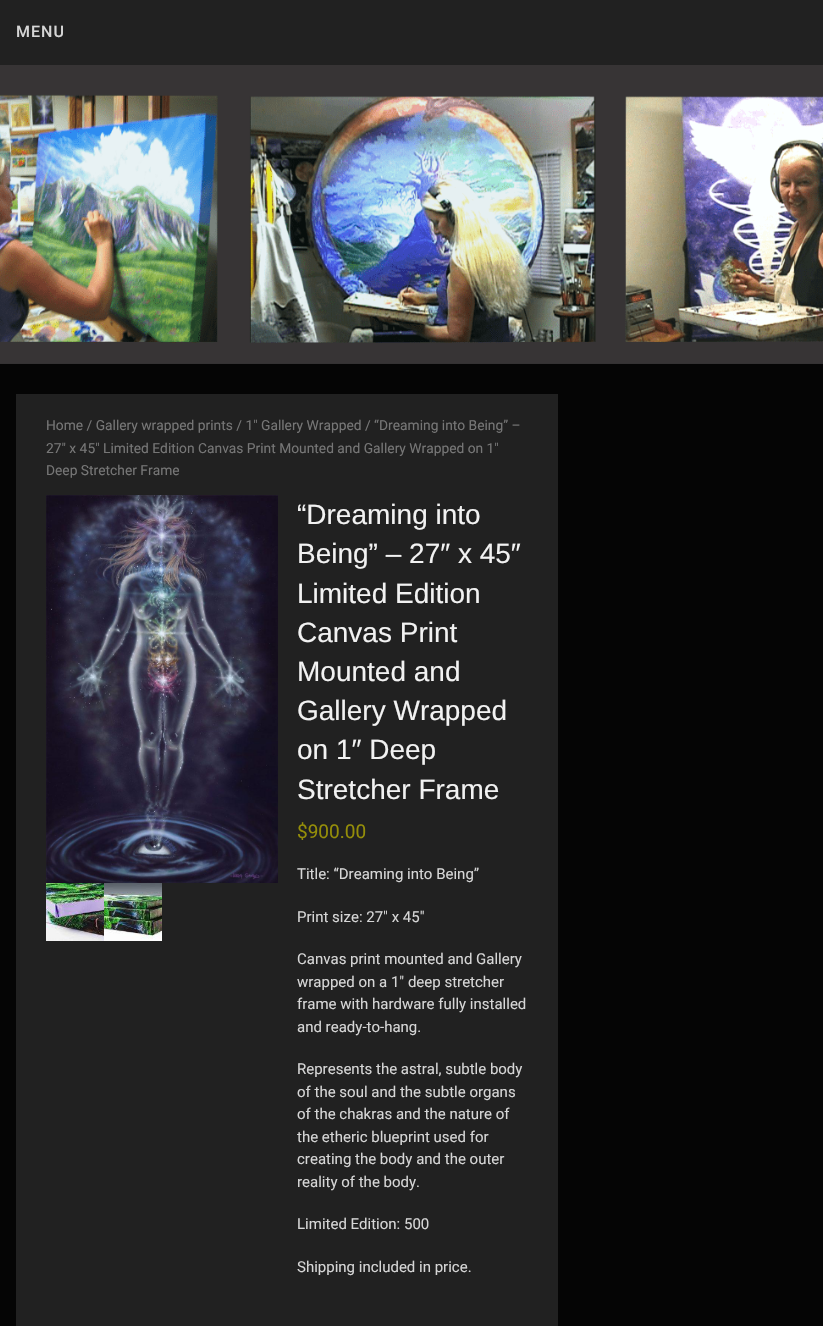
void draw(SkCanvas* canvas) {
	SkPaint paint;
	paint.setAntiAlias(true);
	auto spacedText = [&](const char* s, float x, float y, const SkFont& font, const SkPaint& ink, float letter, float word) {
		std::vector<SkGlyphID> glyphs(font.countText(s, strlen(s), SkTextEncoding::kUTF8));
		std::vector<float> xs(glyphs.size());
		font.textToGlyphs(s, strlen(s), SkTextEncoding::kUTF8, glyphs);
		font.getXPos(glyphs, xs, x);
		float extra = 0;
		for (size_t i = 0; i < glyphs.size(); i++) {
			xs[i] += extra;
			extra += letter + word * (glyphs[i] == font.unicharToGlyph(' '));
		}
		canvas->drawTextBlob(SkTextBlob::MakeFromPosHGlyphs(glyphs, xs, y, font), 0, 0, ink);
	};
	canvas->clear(0xff050505);
	canvas->drawImageRect(SkImages::DeferredFromEncodedData(SkData::MakeFromFileName("img1.png")), SkRect::MakeXYWH(0, 65, 823, 299), SkSamplingOptions());
	paint.setColor(0xff212121);
	canvas->drawRect(SkRect::MakeXYWH(0, 0, 823, 65), paint);
	SkFont f1(fontMgr->matchFamilyStyle("Roboto", SkFontStyle(500, SkFontStyle::kNormal_Width, SkFontStyle::kUpright_Slant)), 16);
	f1.setSubpixel(true);
	paint.setColor(0xffd6d6d6);
	spacedText("MENU", 16, 37, f1, paint, 1, 0);
	paint.setColor(0xff212121);
	canvas->drawRect(SkRect::MakeXYWH(16, 394, 542, 932), paint);
	SkFont f2(fontMgr->matchFamilyStyle("Roboto", SkFontStyle::Normal()), 13.8);
	f2.setSubpixel(true);
	paint.setColor(0xff767676);
	canvas->drawString("Home / Gallery wrapped prints / 1\" Gallery Wrapped / “Dreaming into Being” –", 46, 430, f2, paint);
	canvas->drawString("27″ x 45″ Limited Edition Canvas Print Mounted and Gallery Wrapped on 1″", 46, 453, f2, paint);
	canvas->drawString("Deep Stretcher Frame", 46, 475, f2, paint);
	canvas->drawImageRect(SkImages::DeferredFromEncodedData(SkData::MakeFromFileName("img2.png")), SkRect::MakeXYWH(46, 495, 232, 388), SkSamplingOptions());
	canvas->drawImageRect(SkImages::DeferredFromEncodedData(SkData::MakeFromFileName("img3.png")), SkRect::MakeXYWH(46, 883, 58, 58), SkSamplingOptions());
	canvas->drawImageRect(SkImages::DeferredFromEncodedData(SkData::MakeFromFileName("img4.png")), SkRect::MakeXYWH(104, 883, 58, 58), SkSamplingOptions());
	SkFont f3(fontMgr->matchFamilyStyle("Liberation Sans", SkFontStyle::Normal()), 28);
	f3.setSubpixel(true);
	paint.setColor(0xfff2f2f2);
	canvas->drawString("“Dreaming into", 297, 524, f3, paint);
	canvas->drawString("Being” – 27″ x 45″", 297, 563, f3, paint);
	canvas->drawString("Limited Edition", 297, 603, f3, paint);
	canvas->drawString("Canvas Print", 297, 642, f3, paint);
	canvas->drawString("Mounted and", 297, 681, f3, paint);
	canvas->drawString("Gallery Wrapped", 297, 720, f3, paint);
	canvas->drawString("on 1″ Deep", 297, 759, f3, paint);
	canvas->drawString("Stretcher Frame", 297, 799, f3, paint);
	SkFont f4(fontMgr->matchFamilyStyle("Roboto", SkFontStyle::Normal()), 19);
	f4.setSubpixel(true);
	paint.setColor(0xff958e09);
	canvas->drawString("$900.00", 297, 838, f4, paint);
	SkFont f5(fontMgr->matchFamilyStyle("Roboto", SkFontStyle::Normal()), 15);
	f5.setSubpixel(true);
	paint.setColor(0xffd6d6d6);
	canvas->drawString("Title: “Dreaming into Being”", 297, 879, f5, paint);
	canvas->drawString("Print size: 27″ x 45″", 297, 922, f5, paint);
	canvas->drawString("Canvas print mounted and Gallery", 297, 964, f5, paint);
	canvas->drawString("wrapped on a 1″ deep stretcher", 297, 987, f5, paint);
	canvas->drawString("frame with hardware fully installed", 297, 1009, f5, paint);
	canvas->drawString("and ready-to-hang.", 297, 1032, f5, paint);
	canvas->drawString("Represents the astral, subtle body", 297, 1074, f5, paint);
	canvas->drawString("of the soul and the subtle organs", 297, 1097, f5, paint);
	canvas->drawString("of the chakras and the nature of", 297, 1119, f5, paint);
	canvas->drawString("the etheric blueprint used for", 297, 1142, f5, paint);
	canvas->drawString("creating the body and the outer", 297, 1164, f5, paint);
	canvas->drawString("reality of the body.", 297, 1187, f5, paint);
	canvas->drawString("Limited Edition: 500", 297, 1229, f5, paint);
	canvas->drawString("Shipping included in price.", 297, 1272, f5, paint);
}
